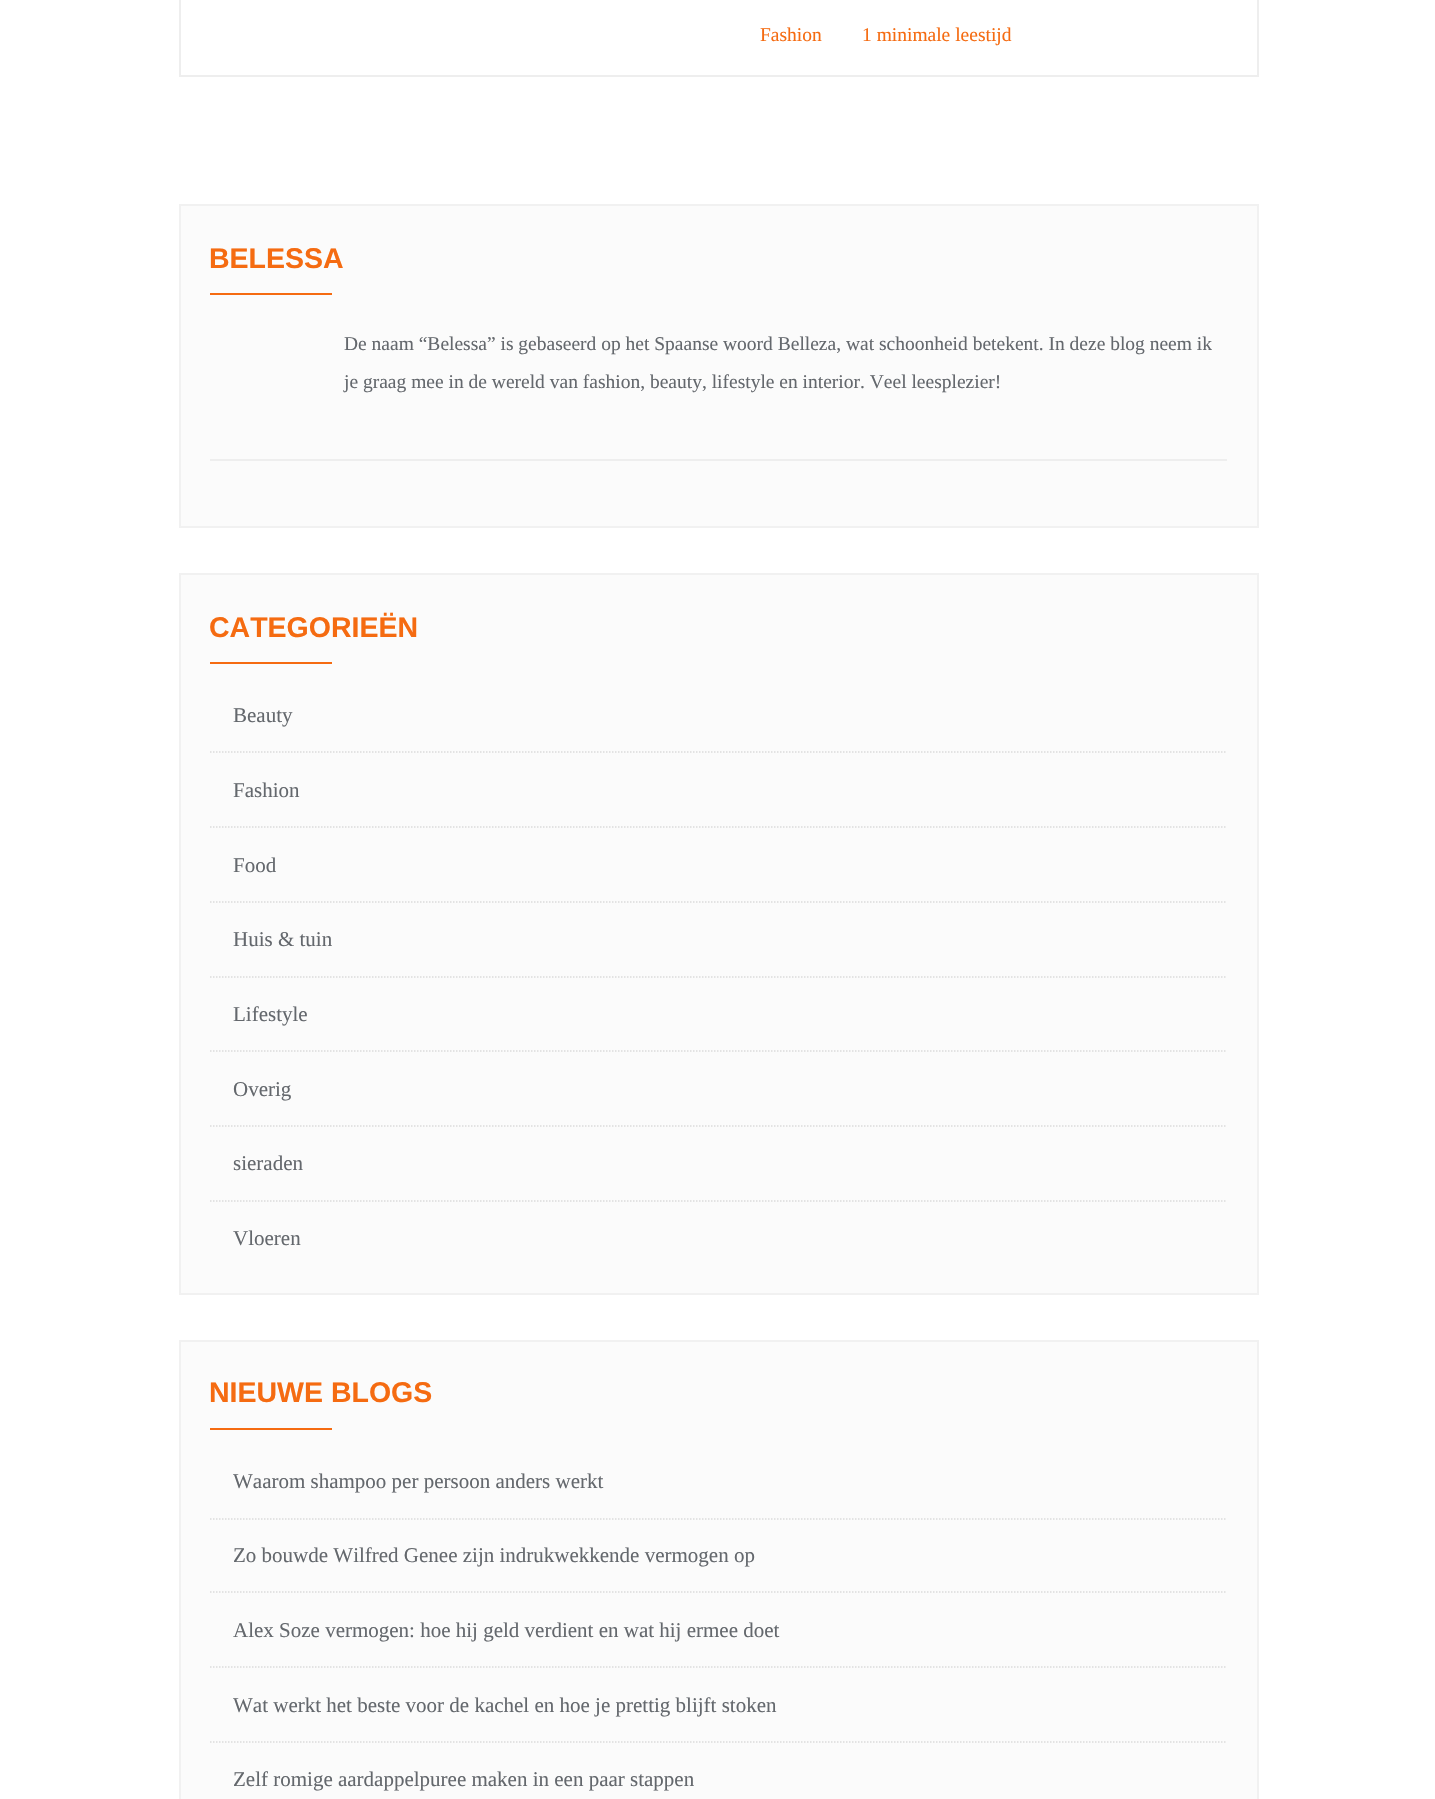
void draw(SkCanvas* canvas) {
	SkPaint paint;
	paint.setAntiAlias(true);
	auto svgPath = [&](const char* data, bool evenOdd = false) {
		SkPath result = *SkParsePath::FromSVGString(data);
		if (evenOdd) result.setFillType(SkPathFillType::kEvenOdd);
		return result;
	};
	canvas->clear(0xffffffff);
	paint.setStroke(true);
	paint.setStrokeWidth(2);
	paint.setColor(0xffeeeeee);
	canvas->drawRect(SkRect::MakeXYWH(180, -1, 1078, 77), paint);
	SkFont f1(fontMgr->matchFamilyStyle("Liberation Serif", SkFontStyle::Normal()), 19.5);
	f1.setSubpixel(true);
	paint.setStroke(false);
	paint.setColor(0xfff56b11);
	canvas->drawString("Fashion", 760, 41, f1, paint);
	canvas->drawString("1 minimale leestijd", 862, 41, f1, paint);
	paint.setColor(0xfffbfbfb);
	canvas->drawRect(SkRect::MakeXYWH(180, 205, 1078, 322), paint);
	paint.setStroke(true);
	paint.setColor(0xfff1f1f1);
	canvas->drawRect(SkRect::MakeXYWH(180, 205, 1078, 322), paint);
	SkFont f2(fontMgr->matchFamilyStyle("Liberation Sans", SkFontStyle::Bold()), 28.5);
	f2.setSubpixel(true);
	paint.setStroke(false);
	paint.setColor(0xfff56b11);
	canvas->drawString("BELESSA", 209, 268, f2, paint);
	canvas->drawRect(SkRect::MakeXYWH(210, 293, 122, 2), paint);
	paint.setColor(0xff64686d);
	canvas->drawString("De naam “Belessa” is gebaseerd op het Spaanse woord Belleza, wat schoonheid betekent. In deze blog neem ik", 344, 350, f1, paint);
	canvas->drawString("je graag mee in de wereld van fashion, beauty, lifestyle en interior. Veel leesplezier!", 344, 388, f1, paint);
	paint.setColor(0xffeeeeee);
	canvas->drawRect(SkRect::MakeXYWH(210, 459, 1017, 2), paint);
	paint.setColor(0xfffbfbfb);
	canvas->drawRect(SkRect::MakeXYWH(180, 574, 1078, 720), paint);
	paint.setStroke(true);
	paint.setColor(0xfff1f1f1);
	canvas->drawRect(SkRect::MakeXYWH(180, 574, 1078, 720), paint);
	paint.setStroke(false);
	paint.setColor(0xfff56b11);
	canvas->drawString("CATEGORIEËN", 209, 637, f2, paint);
	canvas->drawRect(SkRect::MakeXYWH(210, 662, 122, 2), paint);
	paint.setStroke(true);
	paint.setStrokeWidth(1.5);
	paint.setColor(0xffdbdbdb);
	paint.setPathEffect(SkDashPathEffect::Make({{1.5f, 1.5f}}, 0));
	canvas->drawPath(svgPath("M210 752H1227"), paint);
	paint.setPathEffect(nullptr);
	SkFont f3(fontMgr->matchFamilyStyle("Liberation Serif", SkFontStyle::Normal()), 21);
	f3.setSubpixel(true);
	paint.setStroke(false);
	paint.setColor(0xff64686d);
	canvas->drawString("Beauty", 233, 722, f3, paint);
	paint.setStroke(true);
	paint.setColor(0xffdbdbdb);
	paint.setPathEffect(SkDashPathEffect::Make({{1.5f, 1.5f}}, 0));
	canvas->drawPath(svgPath("M210 827H1227"), paint);
	paint.setPathEffect(nullptr);
	paint.setStroke(false);
	paint.setColor(0xff64686d);
	canvas->drawString("Fashion", 233, 797, f3, paint);
	paint.setStroke(true);
	paint.setColor(0xffdbdbdb);
	paint.setPathEffect(SkDashPathEffect::Make({{1.5f, 1.5f}}, 0));
	canvas->drawPath(svgPath("M210 902H1227"), paint);
	paint.setPathEffect(nullptr);
	paint.setStroke(false);
	paint.setColor(0xff64686d);
	canvas->drawString("Food", 233, 872, f3, paint);
	paint.setStroke(true);
	paint.setColor(0xffdbdbdb);
	paint.setPathEffect(SkDashPathEffect::Make({{1.5f, 1.5f}}, 0));
	canvas->drawPath(svgPath("M210 977H1227"), paint);
	paint.setPathEffect(nullptr);
	paint.setStroke(false);
	paint.setColor(0xff64686d);
	canvas->drawString("Huis & tuin", 233, 946, f3, paint);
	paint.setStroke(true);
	paint.setColor(0xffdbdbdb);
	paint.setPathEffect(SkDashPathEffect::Make({{1.5f, 1.5f}}, 0));
	canvas->drawPath(svgPath("M210 1051H1227"), paint);
	paint.setPathEffect(nullptr);
	paint.setStroke(false);
	paint.setColor(0xff64686d);
	canvas->drawString("Lifestyle", 233, 1021, f3, paint);
	paint.setStroke(true);
	paint.setColor(0xffdbdbdb);
	paint.setPathEffect(SkDashPathEffect::Make({{1.5f, 1.5f}}, 0));
	canvas->drawPath(svgPath("M210 1126H1227"), paint);
	paint.setPathEffect(nullptr);
	paint.setStroke(false);
	paint.setColor(0xff64686d);
	canvas->drawString("Overig", 233, 1096, f3, paint);
	paint.setStroke(true);
	paint.setColor(0xffdbdbdb);
	paint.setPathEffect(SkDashPathEffect::Make({{1.5f, 1.5f}}, 0));
	canvas->drawPath(svgPath("M210 1201H1227"), paint);
	paint.setPathEffect(nullptr);
	paint.setStroke(false);
	paint.setColor(0xff64686d);
	canvas->drawString("sieraden", 233, 1170, f3, paint);
	canvas->drawString("Vloeren", 233, 1245, f3, paint);
	paint.setColor(0xfffbfbfb);
	canvas->drawRect(SkRect::MakeXYWH(180, 1341, 1078, 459), paint);
	paint.setStroke(true);
	paint.setStrokeWidth(2);
	paint.setColor(0xfff1f1f1);
	canvas->drawRect(SkRect::MakeXYWH(180, 1341, 1078, 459), paint);
	paint.setStroke(false);
	paint.setColor(0xfff56b11);
	canvas->drawString("NIEUWE BLOGS", 209, 1402, f2, paint);
	canvas->drawRect(SkRect::MakeXYWH(210, 1428, 122, 2), paint);
	paint.setStroke(true);
	paint.setStrokeWidth(1.5);
	paint.setColor(0xffdbdbdb);
	paint.setPathEffect(SkDashPathEffect::Make({{1.5f, 1.5f}}, 0));
	canvas->drawPath(svgPath("M210 1519H1227"), paint);
	paint.setPathEffect(nullptr);
	paint.setStroke(false);
	paint.setColor(0xff64686d);
	canvas->drawString("Waarom shampoo per persoon anders werkt", 233, 1488, f3, paint);
	paint.setStroke(true);
	paint.setColor(0xffdbdbdb);
	paint.setPathEffect(SkDashPathEffect::Make({{1.5f, 1.5f}}, 0));
	canvas->drawPath(svgPath("M210 1592H1227"), paint);
	paint.setPathEffect(nullptr);
	paint.setStroke(false);
	paint.setColor(0xff64686d);
	canvas->drawString("Zo bouwde Wilfred Genee zijn indrukwekkende vermogen op", 233, 1562, f3, paint);
	paint.setStroke(true);
	paint.setColor(0xffdbdbdb);
	paint.setPathEffect(SkDashPathEffect::Make({{1.5f, 1.5f}}, 0));
	canvas->drawPath(svgPath("M210 1667H1227"), paint);
	paint.setPathEffect(nullptr);
	paint.setStroke(false);
	paint.setColor(0xff64686d);
	canvas->drawString("Alex Soze vermogen: hoe hij geld verdient en wat hij ermee doet", 233, 1637, f3, paint);
	paint.setStroke(true);
	paint.setColor(0xffdbdbdb);
	paint.setPathEffect(SkDashPathEffect::Make({{1.5f, 1.5f}}, 0));
	canvas->drawPath(svgPath("M210 1742H1227"), paint);
	paint.setPathEffect(nullptr);
	paint.setStroke(false);
	paint.setColor(0xff64686d);
	canvas->drawString("Wat werkt het beste voor de kachel en hoe je prettig blijft stoken", 233, 1712, f3, paint);
	canvas->drawString("Zelf romige aardappelpuree maken in een paar stappen", 233, 1786, f3, paint);
}
